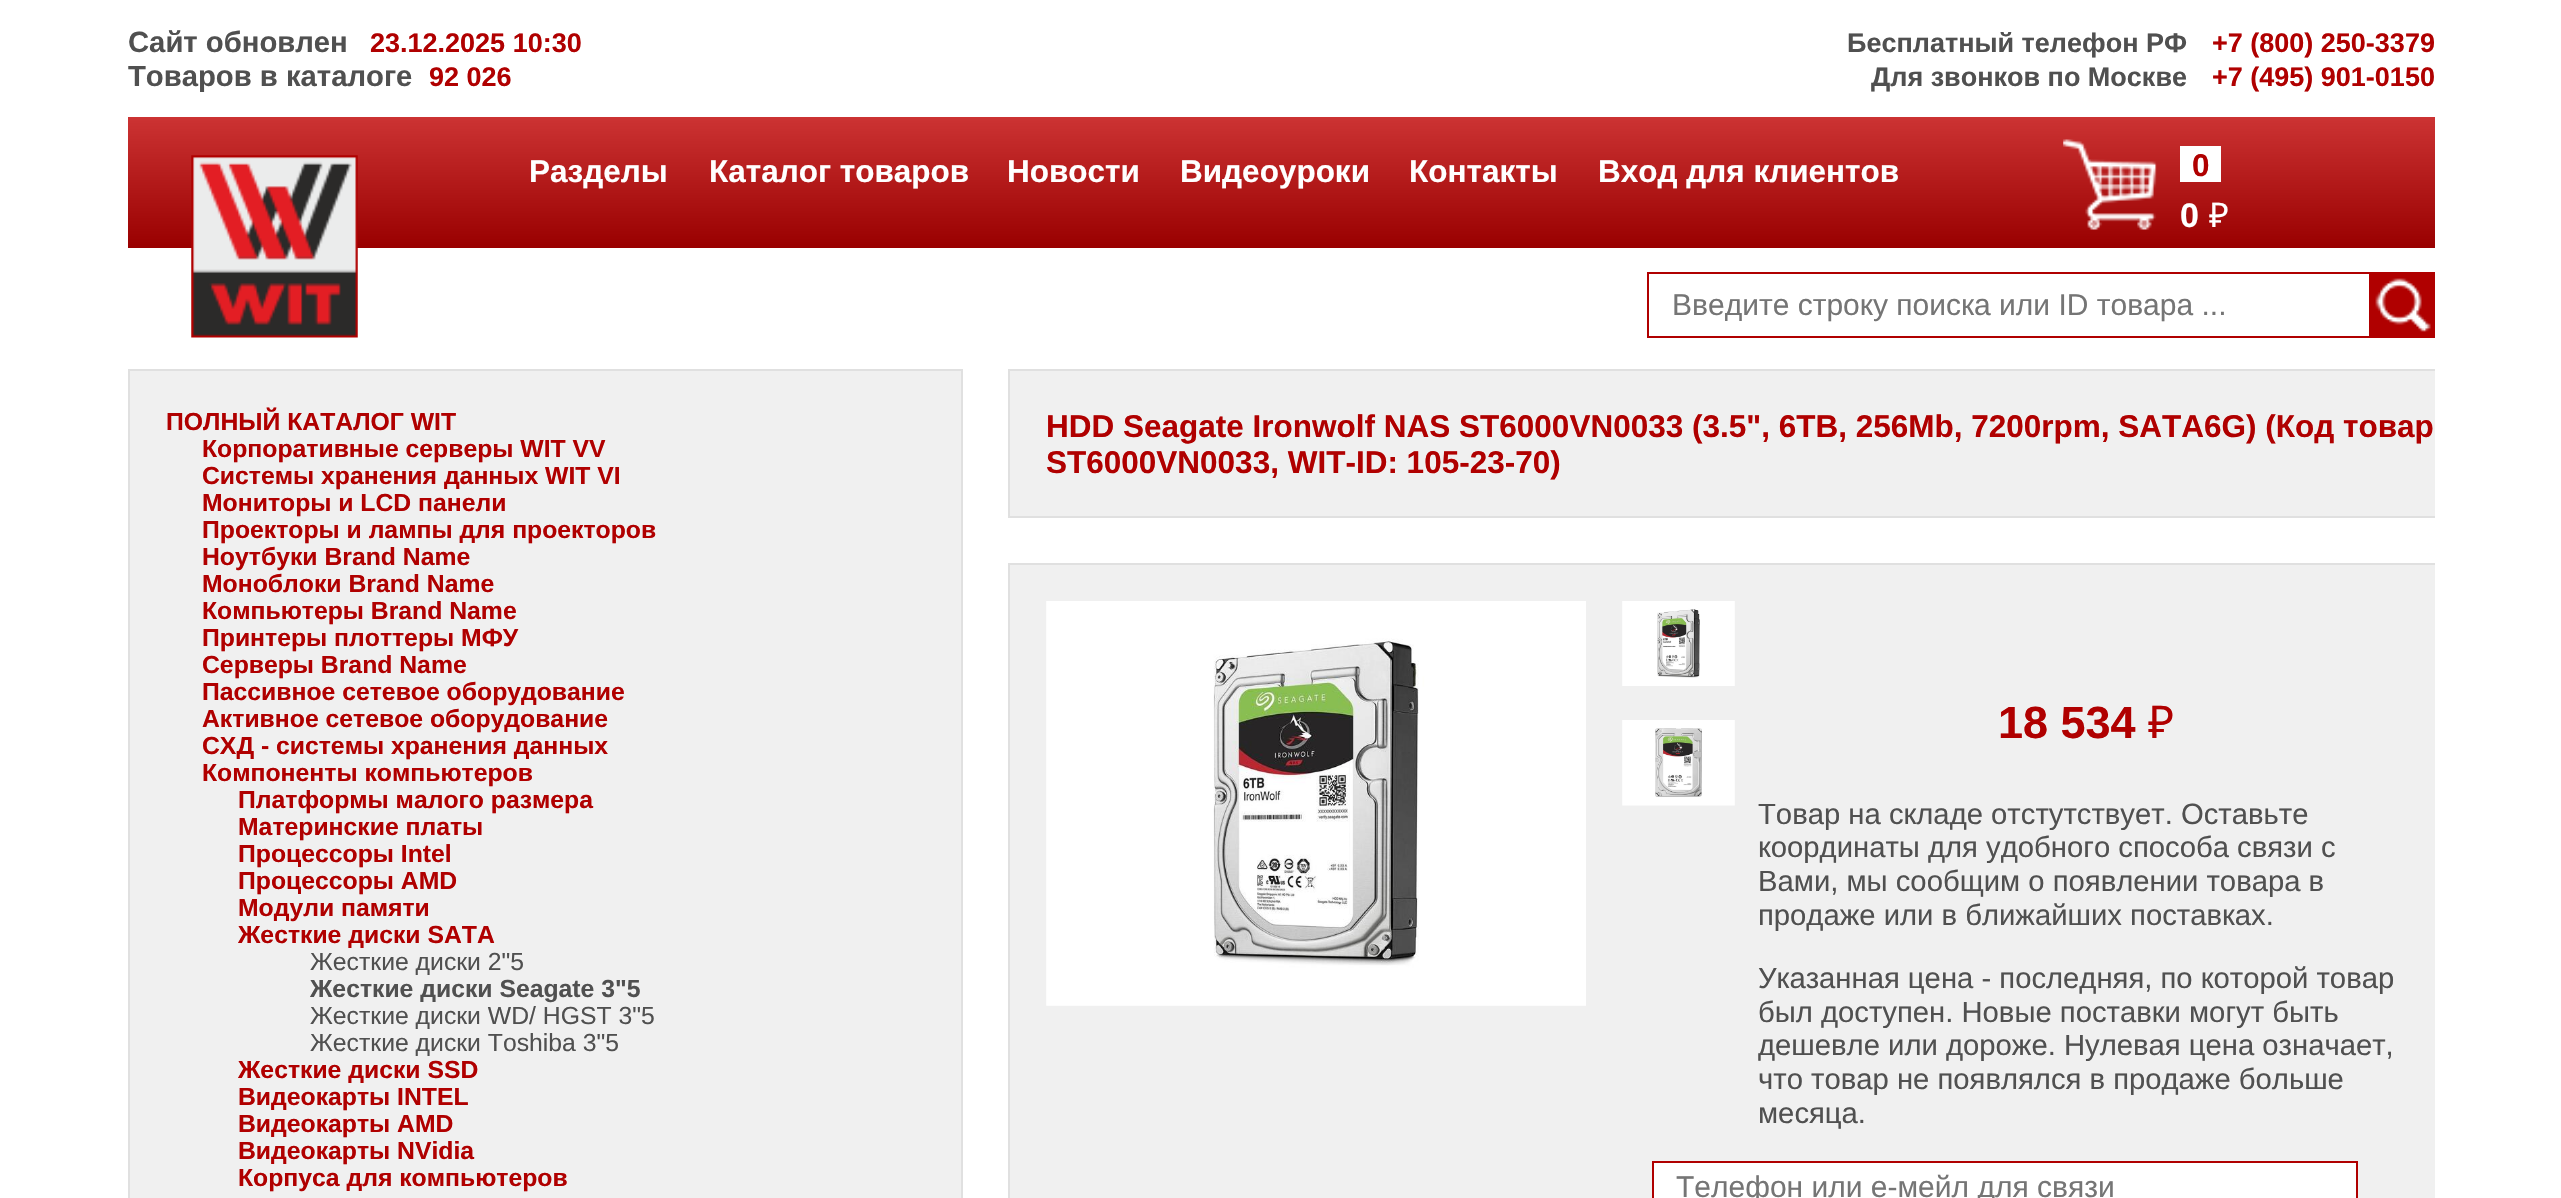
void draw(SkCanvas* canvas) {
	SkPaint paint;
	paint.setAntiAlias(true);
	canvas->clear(0xffffffff);
	SkFont f1(fontMgr->matchFamilyStyle("Liberation Sans", SkFontStyle::Bold()), 29.25);
	f1.setSubpixel(true);
	paint.setColor(0xff505050);
	canvas->drawString("Сайт обновлен", 128, 52, f1, paint);
	SkFont f2(fontMgr->matchFamilyStyle("Liberation Sans", SkFontStyle::Bold()), 27);
	f2.setSubpixel(true);
	paint.setColor(0xffb00000);
	canvas->drawString("23.12.2025 10:30", 370, 52, f2, paint);
	paint.setColor(0xff505050);
	canvas->drawString("Товаров в каталоге", 128, 86, f1, paint);
	paint.setColor(0xffb00000);
	canvas->drawString("92 026", 429, 86, f2, paint);
	paint.setColor(0xff505050);
	canvas->drawString("Бесплатный телефон РФ", 1847, 52, f2, paint);
	paint.setColor(0xffb00000);
	canvas->drawString("+7 (800) 250-3379", 2212, 52, f2, paint);
	paint.setColor(0xff505050);
	canvas->drawString("Для звонков по Москве", 1871, 86, f2, paint);
	paint.setColor(0xffb00000);
	canvas->drawString("+7 (495) 901-0150", 2212, 86, f2, paint);
	{
		const SkColor colors[] = {0xffcc3333, 0xff990000};
		const float stops[] = {0, 1};
		const SkPoint ends[] = {{1281, 117}, {1281, 248}};
		paint.setShader(SkGradientShader::MakeLinear(ends, colors, stops, 2, SkTileMode::kClamp));
		paint.setAlpha(255);
	}
	canvas->drawRect(SkRect::MakeXYWH(128, 117, 2307, 131), paint);
	canvas->drawImageRect(SkImages::DeferredFromEncodedData(SkData::MakeFromFileName("img1.png")), SkRect::MakeXYWH(191, 155, 167, 183), SkSamplingOptions());
	SkFont f3(fontMgr->matchFamilyStyle("Liberation Sans", SkFontStyle::Bold()), 31.5);
	f3.setSubpixel(true);
	paint.setShader(nullptr);
	paint.setColor(0xffffffff);
	canvas->drawString("Разделы", 529, 182, f3, paint);
	canvas->drawString("Каталог товаров", 709, 182, f3, paint);
	canvas->drawString("Новости", 1007, 182, f3, paint);
	canvas->drawString("Видеоуроки", 1180, 182, f3, paint);
	canvas->drawString("Контакты", 1409, 182, f3, paint);
	canvas->drawString("Вход для клиентов", 1598, 182, f3, paint);
	canvas->drawImageRect(SkImages::DeferredFromEncodedData(SkData::MakeFromFileName("img2.png")), SkRect::MakeXYWH(2063, 139, 94, 91), SkSamplingOptions());
	canvas->drawRect(SkRect::MakeXYWH(2180, 146, 41, 36), paint);
	paint.setColor(0xffb00000);
	canvas->drawString("0", 2192, 176, f3, paint);
	SkFont f4(fontMgr->matchFamilyStyle("Liberation Sans", SkFontStyle::Bold()), 34);
	f4.setSubpixel(true);
	paint.setColor(0xffffffff);
	canvas->drawString("0", 2180, 227, f4, paint);
	SkFont f5(fontMgr->matchFamilyStyle("Noto Sans", SkFontStyle::Normal()), 34);
	f5.setSubpixel(true);
	canvas->drawString("₽", 2209, 227, f5, paint);
	paint.setStroke(true);
	paint.setStrokeWidth(2);
	paint.setColor(0xffb00000);
	canvas->drawRect(SkRect::MakeXYWH(1648, 273, 786, 64), paint);
	SkFont f6(fontMgr->matchFamilyStyle("Liberation Sans", SkFontStyle::Normal()), 30);
	f6.setSubpixel(true);
	paint.setStroke(false);
	paint.setColor(0xff757575);
	canvas->drawString("Введите строку поиска или ID товара ...", 1672, 315, f6, paint);
	paint.setColor(0xffb00000);
	canvas->drawRect(SkRect::MakeXYWH(2369, 274, 64, 62), paint);
	canvas->drawImageRect(SkImages::DeferredFromEncodedData(SkData::MakeFromFileName("img3.png")), SkRect::MakeXYWH(2375, 278, 56, 54), SkSamplingOptions());
	paint.setColor(0xfff0f0f0);
	canvas->drawRect(SkRect::MakeXYWH(129, 370, 833, 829), paint);
	paint.setStroke(true);
	paint.setColor(0xffe0e0e0);
	canvas->drawRect(SkRect::MakeXYWH(129, 370, 833, 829), paint);
	SkFont f7(fontMgr->matchFamilyStyle("Liberation Sans", SkFontStyle::Bold()), 24.75);
	f7.setSubpixel(true);
	paint.setStroke(false);
	paint.setColor(0xffb00000);
	canvas->drawString("ПОЛНЫЙ КАТАЛОГ WIT", 166, 430, f7, paint);
	canvas->drawString("Корпоративные серверы WIT VV", 202, 457, f7, paint);
	canvas->drawString("Системы хранения данных WIT VI", 202, 484, f7, paint);
	canvas->drawString("Мониторы и LCD панели", 202, 511, f7, paint);
	canvas->drawString("Проекторы и лампы для проекторов", 202, 538, f7, paint);
	canvas->drawString("Ноутбуки Brand Name", 202, 565, f7, paint);
	canvas->drawString("Моноблоки Brand Name", 202, 592, f7, paint);
	canvas->drawString("Компьютеры Brand Name", 202, 619, f7, paint);
	canvas->drawString("Принтеры плоттеры МФУ", 202, 646, f7, paint);
	canvas->drawString("Серверы Brand Name", 202, 673, f7, paint);
	canvas->drawString("Пассивное сетевое оборудование", 202, 700, f7, paint);
	canvas->drawString("Активное сетевое оборудование", 202, 727, f7, paint);
	canvas->drawString("СХД - системы хранения данных", 202, 754, f7, paint);
	canvas->drawString("Компоненты компьютеров", 202, 781, f7, paint);
	canvas->drawString("Платформы малого размера", 238, 808, f7, paint);
	canvas->drawString("Материнские платы", 238, 835, f7, paint);
	canvas->drawString("Процессоры Intel", 238, 862, f7, paint);
	canvas->drawString("Процессоры AMD", 238, 889, f7, paint);
	canvas->drawString("Модули памяти", 238, 916, f7, paint);
	canvas->drawString("Жесткие диски SATA", 238, 943, f7, paint);
	SkFont f8(fontMgr->matchFamilyStyle("Liberation Sans", SkFontStyle::Normal()), 24.75);
	f8.setSubpixel(true);
	paint.setColor(0xff505050);
	canvas->drawString("Жесткие диски 2\"5", 310, 970, f8, paint);
	canvas->drawString("Жесткие диски Seagate 3\"5", 310, 997, f7, paint);
	canvas->drawString("Жесткие диски WD/ HGST 3\"5", 310, 1024, f8, paint);
	canvas->drawString("Жесткие диски Toshiba 3\"5", 310, 1051, f8, paint);
	paint.setColor(0xffb00000);
	canvas->drawString("Жесткие диски SSD", 238, 1078, f7, paint);
	canvas->drawString("Видеокарты INTEL", 238, 1105, f7, paint);
	canvas->drawString("Видеокарты AMD", 238, 1132, f7, paint);
	canvas->drawString("Видеокарты NVidia", 238, 1159, f7, paint);
	canvas->drawString("Корпуса для компьютеров", 238, 1186, f7, paint);
	paint.setColor(0xfff0f0f0);
	canvas->drawRect(SkRect::MakeXYWH(1010, 371, 1425, 145), paint);
	canvas->save();
	canvas->clipRect(SkRect::MakeXYWH(128, 0, 2307, 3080));
	paint.setStroke(true);
	paint.setColor(0xffe0e0e0);
	canvas->drawRect(SkRect::MakeXYWH(1009, 370, 1501, 147), paint);
	canvas->restore();
	paint.setStroke(false);
	paint.setColor(0xffb00000);
	canvas->drawString("HDD Seagate Ironwolf NAS ST6000VN0033 (3.5\", 6TB, 256Mb, 7200rpm, SATA6G) (Код товар", 1046, 437, f3, paint);
	canvas->drawString("ST6000VN0033, WIT-ID: 105-23-70)", 1046, 473, f3, paint);
	canvas->save();
	canvas->clipRect(SkRect::MakeXYWH(128, 0, 2307, 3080));
	paint.setStroke(true);
	paint.setColor(0xffe0e0e0);
	canvas->drawRect(SkRect::MakeXYWH(1009, 564, 1429, 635), paint);
	canvas->restore();
	paint.setStroke(false);
	paint.setColor(0xfff0f0f0);
	canvas->drawRect(SkRect::MakeXYWH(1010, 565, 1425, 633), paint);
	canvas->drawImageRect(SkImages::DeferredFromEncodedData(SkData::MakeFromFileName("img4.png")), SkRect::MakeXYWH(1046, 601, 540, 405), SkSamplingOptions());
	canvas->drawImageRect(SkImages::DeferredFromEncodedData(SkData::MakeFromFileName("img5.png")), SkRect::MakeXYWH(1622, 601, 113, 85), SkSamplingOptions());
	canvas->drawImageRect(SkImages::DeferredFromEncodedData(SkData::MakeFromFileName("img6.png")), SkRect::MakeXYWH(1622, 720, 113, 86), SkSamplingOptions());
	SkFont f9(fontMgr->matchFamilyStyle("Liberation Sans", SkFontStyle::Bold()), 45);
	f9.setSubpixel(true);
	paint.setColor(0xffb00000);
	canvas->drawString("18 534", 1998, 738, f9, paint);
	SkFont f10(fontMgr->matchFamilyStyle("Noto Sans", SkFontStyle::Normal()), 45);
	f10.setSubpixel(true);
	canvas->drawString("₽", 2148, 738, f10, paint);
	SkFont f11(fontMgr->matchFamilyStyle("Liberation Sans", SkFontStyle::Normal()), 29.25);
	f11.setSubpixel(true);
	paint.setColor(0xff505050);
	canvas->drawString("Товар на складе отстутствует. Оставьте", 1758, 824, f11, paint);
	canvas->drawString("координаты для удобного способа связи с", 1758, 857, f11, paint);
	canvas->drawString("Вами, мы сообщим о появлении товара в", 1758, 891, f11, paint);
	canvas->drawString("продаже или в ближайших поставках.", 1758, 925, f11, paint);
	canvas->drawString("Указанная цена - последняя, по которой товар", 1758, 988, f11, paint);
	canvas->drawString("был доступен. Новые поставки могут быть", 1758, 1022, f11, paint);
	canvas->drawString("дешевле или дороже. Нулевая цена означает,", 1758, 1055, f11, paint);
	canvas->drawString("что товар не появлялся в продаже больше", 1758, 1089, f11, paint);
	canvas->drawString("месяца.", 1758, 1123, f11, paint);
	paint.setColor(0xffffffff);
	canvas->drawRect(SkRect::MakeXYWH(1653, 1162, 704, 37), paint);
	paint.setStroke(true);
	paint.setColor(0xffb00000);
	canvas->drawRect(SkRect::MakeXYWH(1653, 1162, 704, 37), paint);
	paint.setStroke(false);
	paint.setColor(0xff757575);
	canvas->drawString("Телефон или е-мейл для связи", 1676, 1197, f6, paint);
}
